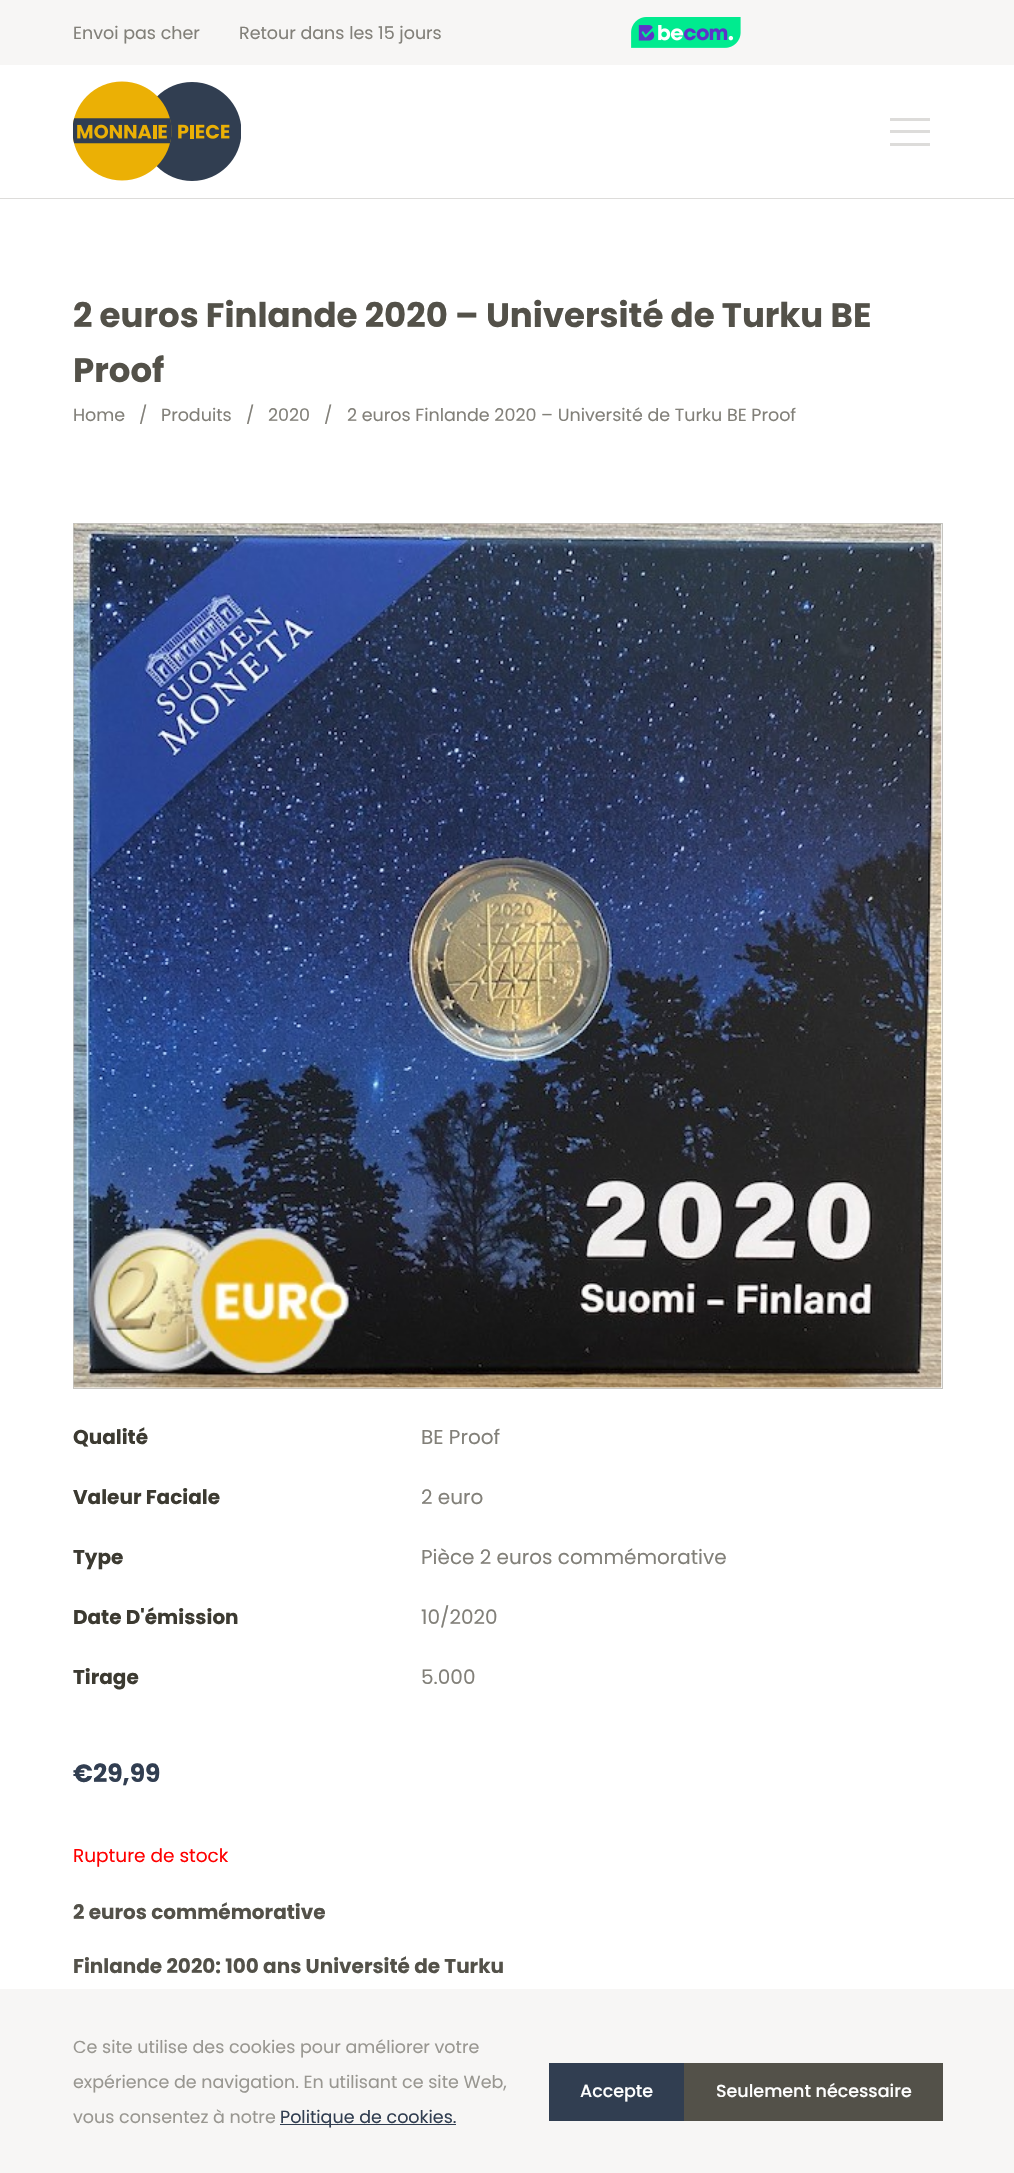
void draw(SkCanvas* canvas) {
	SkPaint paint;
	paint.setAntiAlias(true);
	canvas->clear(0xffffffff);
	paint.setColor(0xfff7f6f5);
	canvas->drawRect(SkRect::MakeXYWH(0, 0, 1014, 65), paint);
	SkFont f1(fontMgr->matchFamilyStyle("Poppins", SkFontStyle::Normal()), 17.5);
	f1.setSubpixel(true);
	paint.setColor(0xff828079);
	canvas->drawString("Envoi pas cher", 73, 39, f1, paint);
	canvas->drawString("Retour dans les 15 jours", 239, 39, f1, paint);
	canvas->drawImageRect(SkImages::DeferredFromEncodedData(SkData::MakeFromFileName("img1.png")), SkRect::MakeXYWH(631, 17, 110, 31), SkSamplingOptions());
	paint.setColor(0xffdddcda);
	canvas->drawRect(SkRect::MakeXYWH(0, 198, 1014, 1), paint);
	canvas->drawImageRect(SkImages::DeferredFromEncodedData(SkData::MakeFromFileName("img2.png")), SkRect::MakeXYWH(73, 81, 168, 100), SkSamplingOptions());
	canvas->drawRect(SkRect::MakeXYWH(890, 118, 40, 3), paint);
	canvas->drawRect(SkRect::MakeXYWH(890, 130, 40, 3), paint);
	canvas->drawRect(SkRect::MakeXYWH(890, 143, 40, 3), paint);
	SkFont f2(fontMgr->matchFamilyStyle("Poppins", SkFontStyle::Bold()), 34);
	f2.setSubpixel(true);
	paint.setColor(0xff535149);
	canvas->drawString("2 euros Finlande 2020 – Université de Turku BE", 73, 327, f2, paint);
	canvas->drawString("Proof", 73, 382, f2, paint);
	paint.setColor(0xff828079);
	canvas->drawString("Home", 73, 421, f1, paint);
	canvas->drawString("/", 139, 421, f1, paint);
	canvas->drawString("Produits", 161, 421, f1, paint);
	canvas->drawString("/", 246, 421, f1, paint);
	canvas->drawString("2020", 268, 421, f1, paint);
	canvas->drawString("/", 324, 421, f1, paint);
	canvas->drawString("2 euros Finlande 2020 – Université de Turku BE Proof", 347, 421, f1, paint);
	paint.setStroke(true);
	paint.setStrokeWidth(1);
	paint.setColor(0xffc6c5c1);
	canvas->drawRect(SkRect::MakeXYWH(73.5, 523.5, 869, 865), paint);
	canvas->drawImageRect(SkImages::DeferredFromEncodedData(SkData::MakeFromFileName("img3.png")), SkRect::MakeXYWH(73, 523, 869, 865), SkSamplingOptions());
	SkFont f3(fontMgr->matchFamilyStyle("Poppins", SkFontStyle::Bold()), 20);
	f3.setSubpixel(true);
	paint.setStroke(false);
	paint.setColor(0xff3c3a31);
	canvas->drawString("Qualité", 73, 1444, f3, paint);
	SkFont f4(fontMgr->matchFamilyStyle("Poppins", SkFontStyle::Normal()), 20);
	f4.setSubpixel(true);
	paint.setColor(0xff828079);
	canvas->drawString("BE Proof", 421, 1444, f4, paint);
	paint.setColor(0xff3c3a31);
	canvas->drawString("Valeur Faciale", 73, 1504, f3, paint);
	paint.setColor(0xff828079);
	canvas->drawString("2 euro", 421, 1504, f4, paint);
	paint.setColor(0xff3c3a31);
	canvas->drawString("Type", 73, 1564, f3, paint);
	paint.setColor(0xff828079);
	canvas->drawString("Pièce 2 euros commémorative", 421, 1564, f4, paint);
	paint.setColor(0xff3c3a31);
	canvas->drawString("Date D'émission", 73, 1624, f3, paint);
	paint.setColor(0xff828079);
	canvas->drawString("10/2020", 421, 1624, f4, paint);
	paint.setColor(0xff3c3a31);
	canvas->drawString("Tirage", 73, 1684, f3, paint);
	paint.setColor(0xff828079);
	canvas->drawString("5.000", 421, 1684, f4, paint);
	SkFont f5(fontMgr->matchFamilyStyle("Poppins", SkFontStyle::Bold()), 25);
	f5.setSubpixel(true);
	paint.setColor(0xff313e51);
	canvas->drawString("€29,99", 73, 1782, f5, paint);
	SkFont f6(fontMgr->matchFamilyStyle("Poppins", SkFontStyle::Normal()), 18.5);
	f6.setSubpixel(true);
	paint.setColor(0xffff0000);
	canvas->drawString("Rupture de stock", 73, 1862, f6, paint);
	paint.setColor(0xff535149);
	canvas->drawString("2 euros commémorative", 73, 1919, f3, paint);
	canvas->drawString("Finlande 2020: 100 ans Université de Turku", 73, 1973, f3, paint);
	paint.setColor(0xfff7f6f5);
	canvas->drawRect(SkRect::MakeXYWH(0, 1989, 1014, 184), paint);
	paint.setColor(0xff999791);
	canvas->drawString("Ce site utilise des cookies pour améliorer votre", 73, 2053, f1, paint);
	canvas->drawString("expérience de navigation. En utilisant ce site Web,", 73, 2088, f1, paint);
	canvas->drawString("vous consentez à notre", 73, 2123, f1, paint);
	paint.setColor(0xff313e51);
	canvas->drawRect(SkRect::MakeXYWH(280, 2124, 176, 1), paint);
	canvas->drawString("Politique de cookies.", 280, 2123, f1, paint);
	canvas->drawRect(SkRect::MakeXYWH(549, 2063, 135, 58), paint);
	SkFont f7(fontMgr->matchFamilyStyle("Poppins", SkFontStyle(500, SkFontStyle::kNormal_Width, SkFontStyle::kUpright_Slant)), 17.5);
	f7.setSubpixel(true);
	paint.setColor(0xffffffff);
	canvas->drawString("Accepte", 580, 2097, f7, paint);
	paint.setColor(0xff535149);
	canvas->drawRect(SkRect::MakeXYWH(684, 2063, 259, 58), paint);
	paint.setColor(0xffffffff);
	canvas->drawString("Seulement nécessaire", 716, 2097, f7, paint);
}
